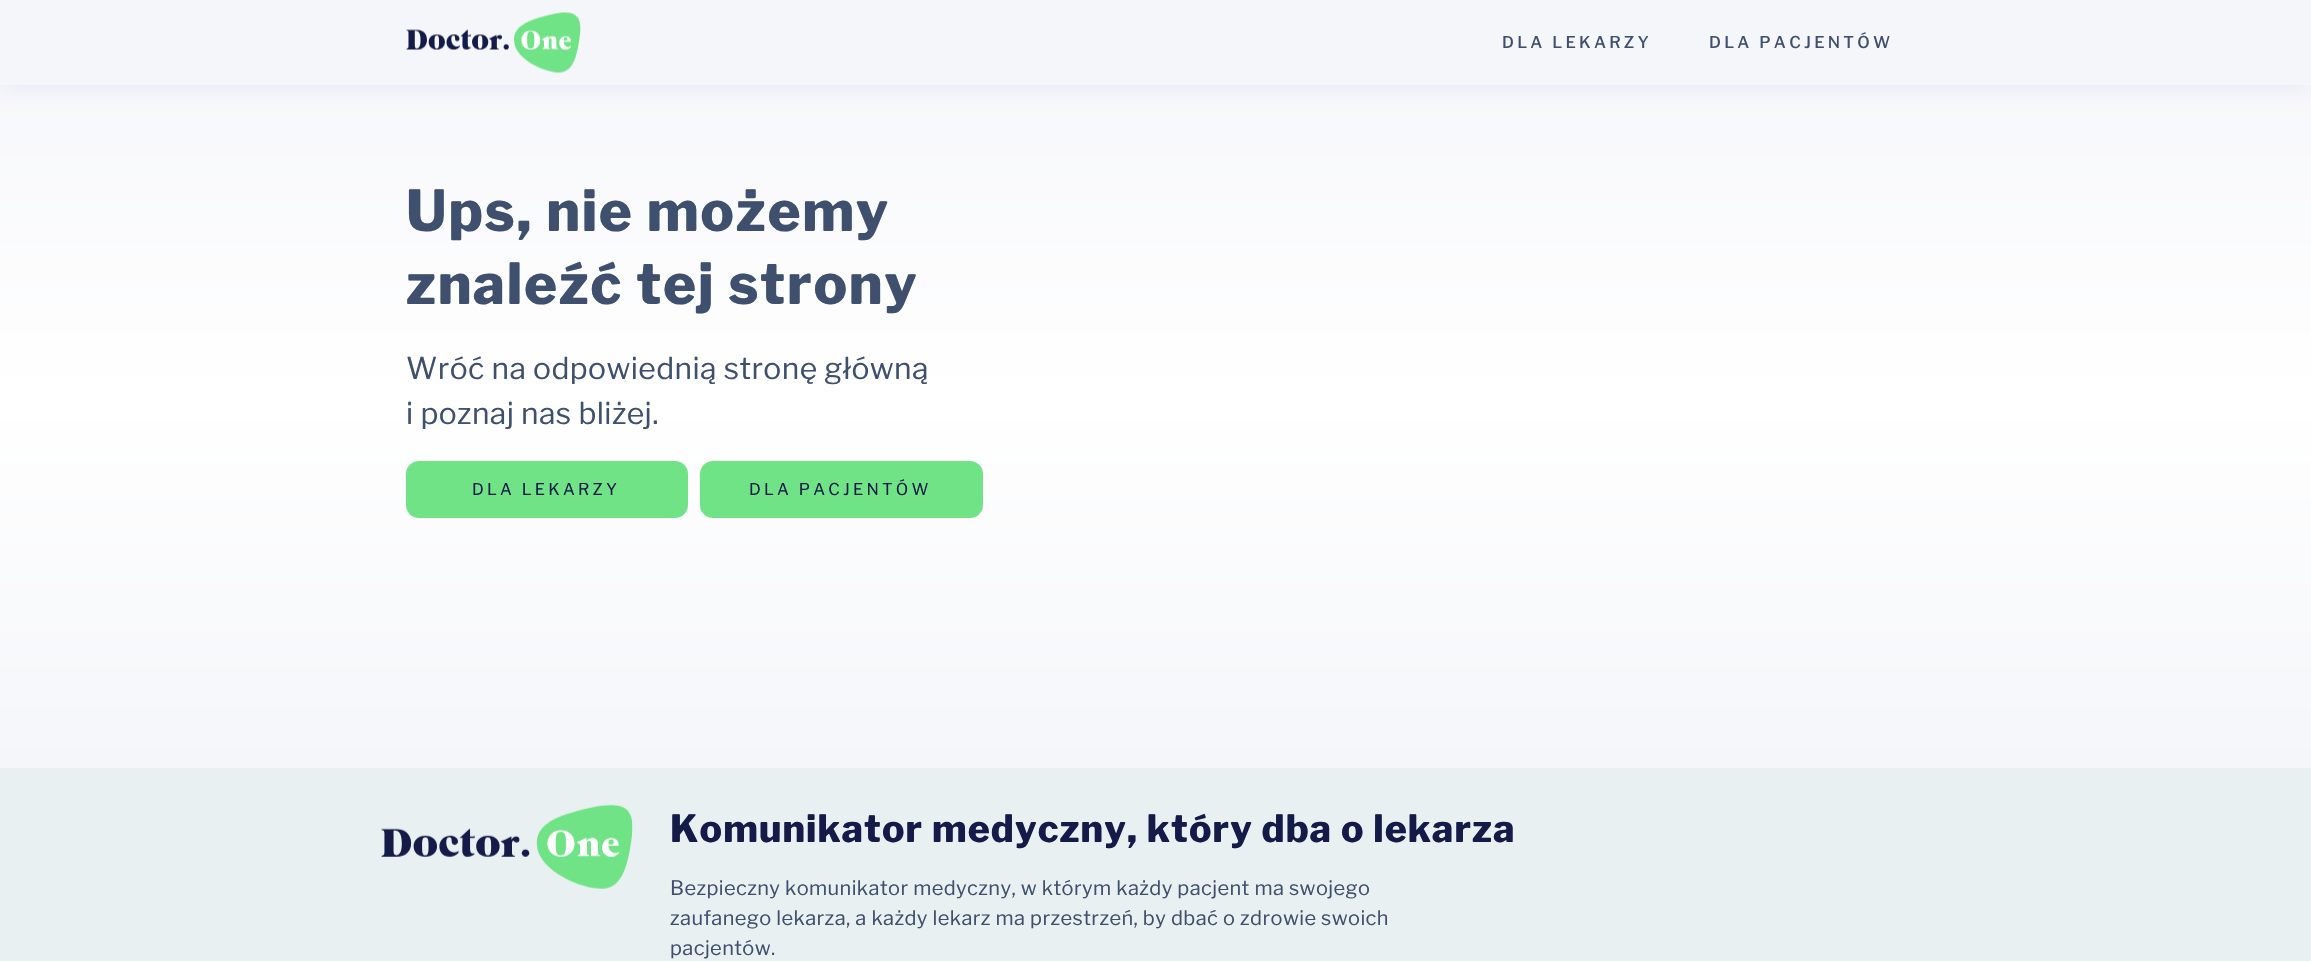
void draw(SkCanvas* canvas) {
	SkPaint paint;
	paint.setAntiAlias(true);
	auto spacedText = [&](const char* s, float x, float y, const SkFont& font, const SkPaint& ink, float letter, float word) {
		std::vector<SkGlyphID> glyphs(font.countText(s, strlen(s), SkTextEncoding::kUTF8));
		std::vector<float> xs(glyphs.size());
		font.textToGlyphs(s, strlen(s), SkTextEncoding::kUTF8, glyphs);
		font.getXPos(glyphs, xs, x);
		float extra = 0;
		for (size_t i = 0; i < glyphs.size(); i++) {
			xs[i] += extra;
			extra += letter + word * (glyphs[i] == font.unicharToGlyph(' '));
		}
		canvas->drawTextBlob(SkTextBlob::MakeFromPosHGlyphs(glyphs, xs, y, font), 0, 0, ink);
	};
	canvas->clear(0xffffffff);
	paint.setColor(0xfff5f6fa);
	canvas->drawRect(SkRect::MakeXYWH(0, 0, 2311, 85), paint);
	{
		const SkColor colors[] = {0xfff5f6fa, 0xffffffff, 0xfff5f6fa};
		const float stops[] = {0, 0.52, 1};
		const SkPoint ends[] = {{1156, 0}, {1156, 768}};
		paint.setShader(SkGradientShader::MakeLinear(ends, colors, stops, 3, SkTileMode::kClamp));
		paint.setAlpha(255);
	}
	canvas->drawRect(SkRect::MakeXYWH(0, 85, 2311, 683), paint);
	canvas->save();
	canvas->clipRect(SkRect::MakeXYWH(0, 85, 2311, 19));
	paint.setShader(nullptr);
	paint.setColor(0x4daeb8e5);
	paint.setMaskFilter(SkMaskFilter::MakeBlur(kNormal_SkBlurStyle, 12.5));
	canvas->drawRect(SkRect::MakeXYWH(0, 0, 2311, 85), paint);
	paint.setMaskFilter(nullptr);
	canvas->restore();
	canvas->drawImageRect(SkImages::DeferredFromEncodedData(SkData::MakeFromFileName("img1.png")), SkRect::MakeXYWH(406, 12, 175, 61), SkSamplingOptions());
	SkFont f1(fontMgr->matchFamilyStyle("Libre Franklin", SkFontStyle(500, SkFontStyle::kNormal_Width, SkFontStyle::kUpright_Slant)), 16.25);
	f1.setSubpixel(true);
	paint.setColor(0xff3f506e);
	spacedText("DLA LEKARZY", 1502, 48, f1, paint, 3.25, 0);
	spacedText("DLA PACJENTÓW", 1709, 48, f1, paint, 3.25, 0);
	SkFont f2(fontMgr->matchFamilyStyle("Libre Franklin", SkFontStyle(800, SkFontStyle::kNormal_Width, SkFontStyle::kUpright_Slant)), 56.25);
	f2.setSubpixel(true);
	spacedText("Ups, nie możemy", 406, 231, f2, paint, 1.7, 0);
	spacedText("znaleźć tej strony", 406, 304, f2, paint, 1.7, 0);
	SkFont f3(fontMgr->matchFamilyStyle("Libre Franklin", SkFontStyle::Normal()), 30);
	f3.setSubpixel(true);
	spacedText("Wróć na odpowiednią stronę główną", 406, 379, f3, paint, 0.4, 0);
	spacedText("i poznaj nas bliżej.", 406, 424, f3, paint, 0.4, 0);
	paint.setColor(0xff70e387);
	canvas->drawRoundRect(SkRect::MakeXYWH(406, 461, 282, 57), 13, 13, paint);
	SkFont f4(fontMgr->matchFamilyStyle("Libre Franklin", SkFontStyle::Normal()), 16.25);
	f4.setSubpixel(true);
	paint.setColor(0xff141b49);
	spacedText("DLA LEKARZY", 472, 495, f4, paint, 3.25, 0);
	paint.setColor(0xff70e387);
	canvas->drawRoundRect(SkRect::MakeXYWH(700, 461, 283, 57), 13, 13, paint);
	paint.setColor(0xff141b49);
	spacedText("DLA PACJENTÓW", 749, 495, f4, paint, 3.25, 0);
	paint.setColor(0xffe9f0f2);
	canvas->drawRect(SkRect::MakeXYWH(0, 768, 2311, 193), paint);
	canvas->drawImageRect(SkImages::DeferredFromEncodedData(SkData::MakeFromFileName("img2.png")), SkRect::MakeXYWH(381, 804, 252, 85), SkSamplingOptions());
	SkFont f5(fontMgr->matchFamilyStyle("Libre Franklin", SkFontStyle(800, SkFontStyle::kNormal_Width, SkFontStyle::kUpright_Slant)), 37.5);
	f5.setSubpixel(true);
	paint.setColor(0xff141b49);
	spacedText("Komunikator medyczny, który dba o lekarza", 670, 842, f5, paint, 1.1, 0);
	SkFont f6(fontMgr->matchFamilyStyle("Libre Franklin", SkFontStyle::Normal()), 20);
	f6.setSubpixel(true);
	paint.setColor(0xff3f506e);
	spacedText("Bezpieczny komunikator medyczny, w którym każdy pacjent ma swojego", 670, 895, f6, paint, 0.4, 0);
	spacedText("zaufanego lekarza, a każdy lekarz ma przestrzeń, by dbać o zdrowie swoich", 670, 925, f6, paint, 0.4, 0);
	spacedText("pacjentów.", 670, 955, f6, paint, 0.4, 0);
}
